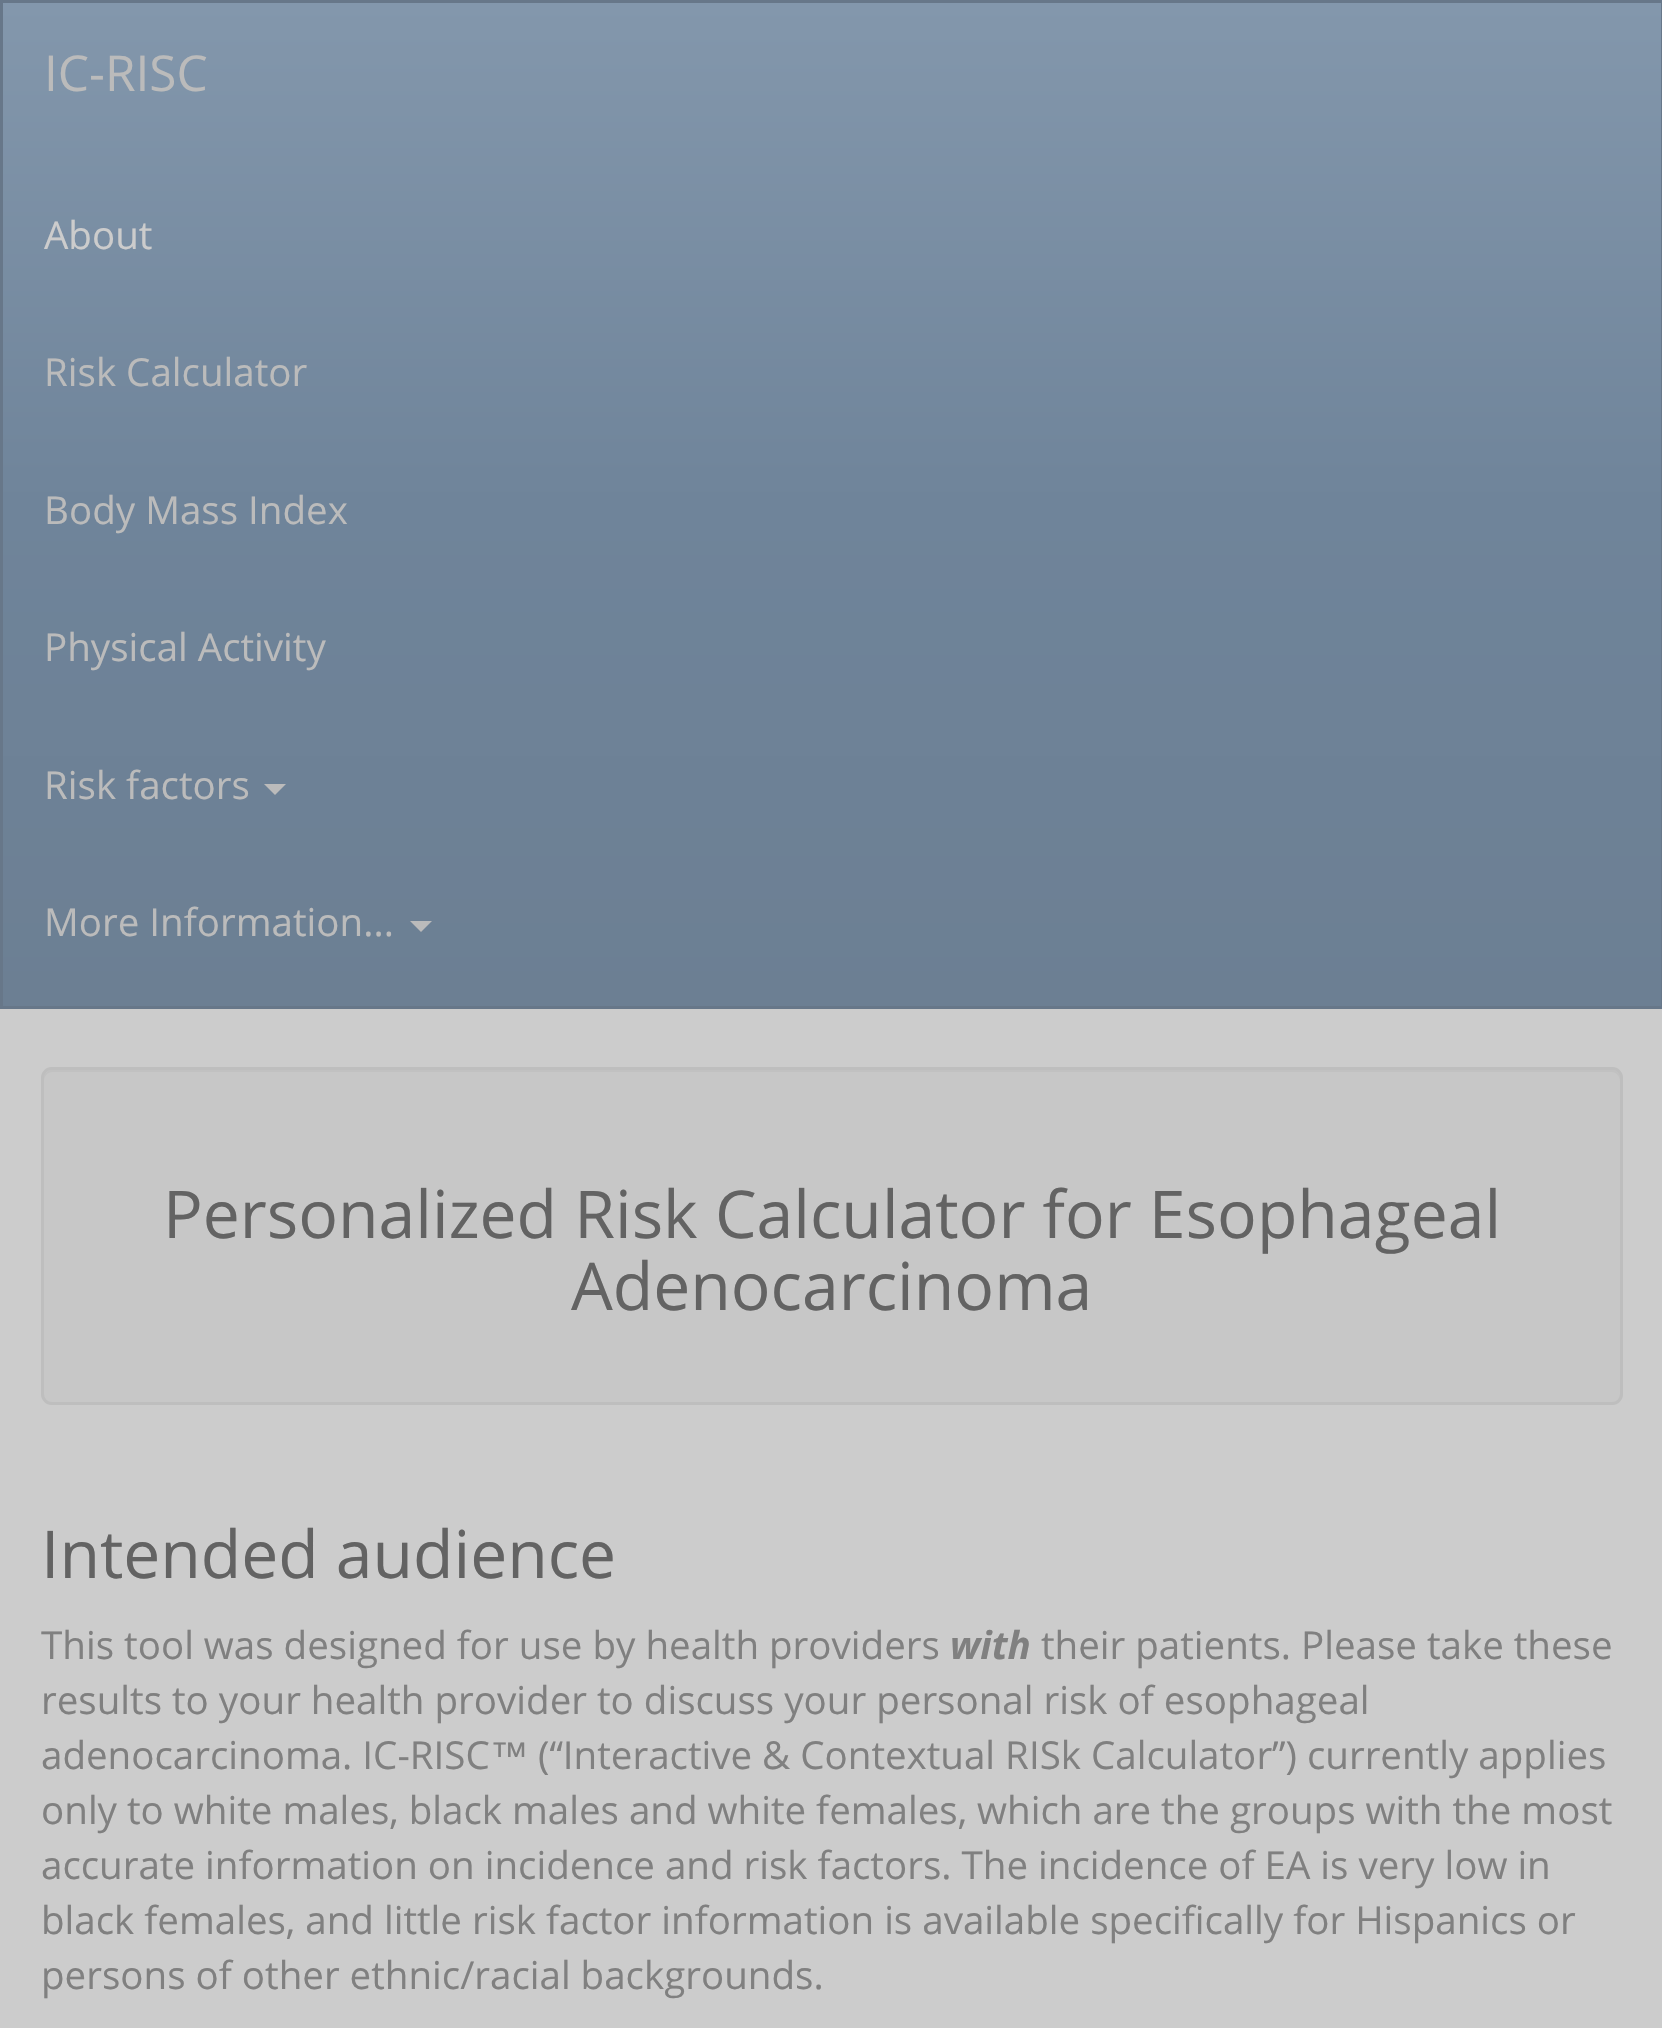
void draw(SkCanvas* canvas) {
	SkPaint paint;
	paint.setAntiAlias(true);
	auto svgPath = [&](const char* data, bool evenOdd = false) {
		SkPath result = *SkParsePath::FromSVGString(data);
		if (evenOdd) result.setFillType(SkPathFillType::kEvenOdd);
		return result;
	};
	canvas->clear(0xffcccccc);
	{
		const SkColor colors[] = {0xff8397ac, 0xff6f849a, 0xff6c7f93};
		const float stops[] = {0, 0.5, 1};
		const SkPoint ends[] = {{832, 2.7}, {832, 1007}};
		paint.setShader(SkGradientShader::MakeLinear(ends, colors, stops, 3, SkTileMode::kClamp));
		paint.setAlpha(255);
	}
	canvas->drawRect(SkRect::MakeXYWH(3, 3, 1658, 1003), paint);
	paint.setStroke(true);
	paint.setStrokeWidth(3);
	paint.setShader(nullptr);
	paint.setColor(0xff677789);
	canvas->drawRect(SkRect::MakeXYWH(1.5, 1.5, 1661, 1006), paint);
	SkFont f1(fontMgr->matchFamilyStyle("Open Sans", SkFontStyle::Normal()), 49.5);
	f1.setSubpixel(true);
	paint.setStroke(false);
	paint.setColor(0xffbbbbbb);
	canvas->drawString("IC-RISC", 44, 91, f1, paint);
	SkFont f2(fontMgr->matchFamilyStyle("Open Sans", SkFontStyle::Normal()), 38.5);
	f2.setSubpixel(true);
	paint.setColor(0xffcccccc);
	canvas->drawString("About", 44, 249, f2, paint);
	paint.setColor(0xffbbbbbb);
	canvas->drawString("Risk Calculator", 44, 386, f2, paint);
	canvas->drawString("Body Mass Index", 44, 524, f2, paint);
	canvas->drawString("Physical Activity", 44, 661, f2, paint);
	canvas->drawString("Risk factors", 44, 799, f2, paint);
	canvas->drawPath(svgPath("M264 784H286L275 795Z"), paint);
	canvas->drawString("More Information...", 44, 936, f2, paint);
	canvas->drawPath(svgPath("M410 921H432L421 932Z"), paint);
	paint.setColor(0xffc7c7c7);
	canvas->drawRoundRect(SkRect::MakeXYWH(41, 1067, 1582, 338), 11, 11, paint);
	paint.setColor(0xffc1c1c1);
	canvas->drawPath(svgPath("M52 1072H1612C1616 1072 1620 1076 1620 1081V1078C1620 1074 1616 1070 1612 1070H52C48 1070 44 1074 44 1078V1081C44 1076 48 1072 52 1072Z"), paint);
	paint.setStroke(true);
	paint.setColor(0xffbebebe);
	canvas->drawRoundRect(SkRect::MakeXYWH(42.5, 1068.5, 1579, 335), 9.5, 9.5, paint);
	SkFont f3(fontMgr->matchFamilyStyle("Open Sans", SkFontStyle::Normal()), 66);
	f3.setSubpixel(true);
	paint.setStroke(false);
	paint.setColor(0xff636363);
	canvas->drawString("Personalized Risk Calculator for Esophageal", 163, 1238, f3, paint);
	canvas->drawString("Adenocarcinoma", 571, 1310, f3, paint);
	canvas->drawString("Intended audience", 41, 1578, f3, paint);
	paint.setColor(0xff808080);
	canvas->drawString("This tool was designed for use by health providers", 41, 1659, f2, paint);
	SkFont f4(fontMgr->matchFamilyStyle("Open Sans", SkFontStyle::BoldItalic()), 38.5);
	f4.setSubpixel(true);
	canvas->drawString("with", 950, 1659, f4, paint);
	canvas->drawString("their patients. Please take these", 1041, 1659, f2, paint);
	canvas->drawString("results to your health provider to discuss your personal risk of esophageal", 41, 1714, f2, paint);
	canvas->drawString("adenocarcinoma. IC-RISC", 41, 1769, f2, paint);
	SkFont f5(fontMgr->matchFamilyStyle("Liberation Sans", SkFontStyle::Normal()), 38.5);
	f5.setSubpixel(true);
	canvas->drawString("™", 490, 1769, f5, paint);
	canvas->drawString("(“Interactive & Contextual RISk Calculator”) currently applies", 538, 1769, f2, paint);
	canvas->drawString("only to white males, black males and white females, which are the groups with the most", 41, 1824, f2, paint);
	canvas->drawString("accurate information on incidence and risk factors. The incidence of EA is very low in", 41, 1879, f2, paint);
	canvas->drawString("black females, and little risk factor information is available specifically for Hispanics or", 41, 1934, f2, paint);
	canvas->drawString("persons of other ethnic/racial backgrounds.", 41, 1989, f2, paint);
}
